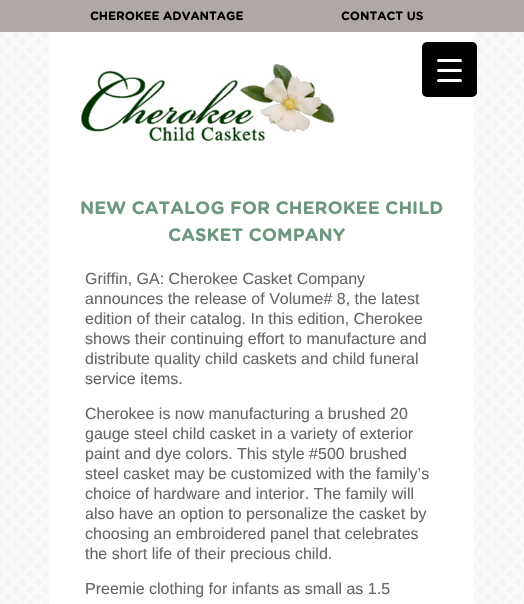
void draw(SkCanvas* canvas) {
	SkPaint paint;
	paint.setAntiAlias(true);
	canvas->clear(0xffffffff);
	canvas->drawImageRect(SkImages::DeferredFromEncodedData(SkData::MakeFromFileName("img1.png")), SkRect::MakeXYWH(0, 32, 524, 572), SkSamplingOptions());
	paint.setColor(0xffb0a8a6);
	canvas->drawRect(SkRect::MakeXYWH(0, 0, 524, 32), paint);
	SkFont f1(fontMgr->matchFamilyStyle("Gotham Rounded", SkFontStyle::Bold()), 12);
	f1.setSubpixel(true);
	paint.setColor(0xff000000);
	canvas->drawString("CHEROKEE ADVANTAGE", 90, 20, f1, paint);
	canvas->drawString("CONTACT US", 341, 20, f1, paint);
	paint.setColor(0xffffffff);
	canvas->drawRect(SkRect::MakeXYWH(50, 32, 424, 572), paint);
	canvas->drawImageRect(SkImages::DeferredFromEncodedData(SkData::MakeFromFileName("img2.png")), SkRect::MakeXYWH(81, 64, 254, 77), SkSamplingOptions());
	paint.setColor(0xff000000);
	canvas->drawRoundRect(SkRect::MakeXYWH(422, 42, 55, 55), 5, 5, paint);
	paint.setColor(0xffffffff);
	canvas->drawRoundRect(SkRect::MakeXYWH(437, 69, 25, 3), 1.5, 1.5, paint);
	canvas->drawRoundRect(SkRect::MakeXYWH(437, 59, 25, 3), 1.5, 1.5, paint);
	canvas->drawRoundRect(SkRect::MakeXYWH(437, 79, 25, 3), 1.5, 1.5, paint);
	SkFont f2(fontMgr->matchFamilyStyle("Gotham Rounded", SkFontStyle::Bold()), 18);
	f2.setSubpixel(true);
	paint.setColor(0xff6d977f);
	canvas->drawString("NEW CATALOG FOR CHEROKEE CHILD", 80, 214, f2, paint);
	canvas->drawString("CASKET COMPANY", 168, 241, f2, paint);
	SkFont f3(fontMgr->matchFamilyStyle("Liberation Sans", SkFontStyle::Normal()), 16);
	f3.setSubpixel(true);
	paint.setColor(0xff676666);
	canvas->drawString("Griffin, GA: Cherokee Casket Company", 85, 284, f3, paint);
	canvas->drawString("announces the release of Volume# 8, the latest", 85, 304, f3, paint);
	canvas->drawString("edition of their catalog. In this edition, Cherokee", 85, 324, f3, paint);
	canvas->drawString("shows their continuing effort to manufacture and", 85, 344, f3, paint);
	canvas->drawString("distribute quality child caskets and child funeral", 85, 364, f3, paint);
	canvas->drawString("service items.", 85, 384, f3, paint);
	canvas->drawString("Cherokee is now manufacturing a brushed 20", 85, 419, f3, paint);
	canvas->drawString("gauge steel child casket in a variety of exterior", 85, 439, f3, paint);
	canvas->drawString("paint and dye colors. This style #500 brushed", 85, 459, f3, paint);
	canvas->drawString("steel casket may be customized with the family’s", 85, 479, f3, paint);
	canvas->drawString("choice of hardware and interior. The family will", 85, 499, f3, paint);
	canvas->drawString("also have an option to personalize the casket by", 85, 519, f3, paint);
	canvas->drawString("choosing an embroidered panel that celebrates", 85, 539, f3, paint);
	canvas->drawString("the short life of their precious child.", 85, 559, f3, paint);
	canvas->drawString("Preemie clothing for infants as small as 1.5", 85, 594, f3, paint);
}
